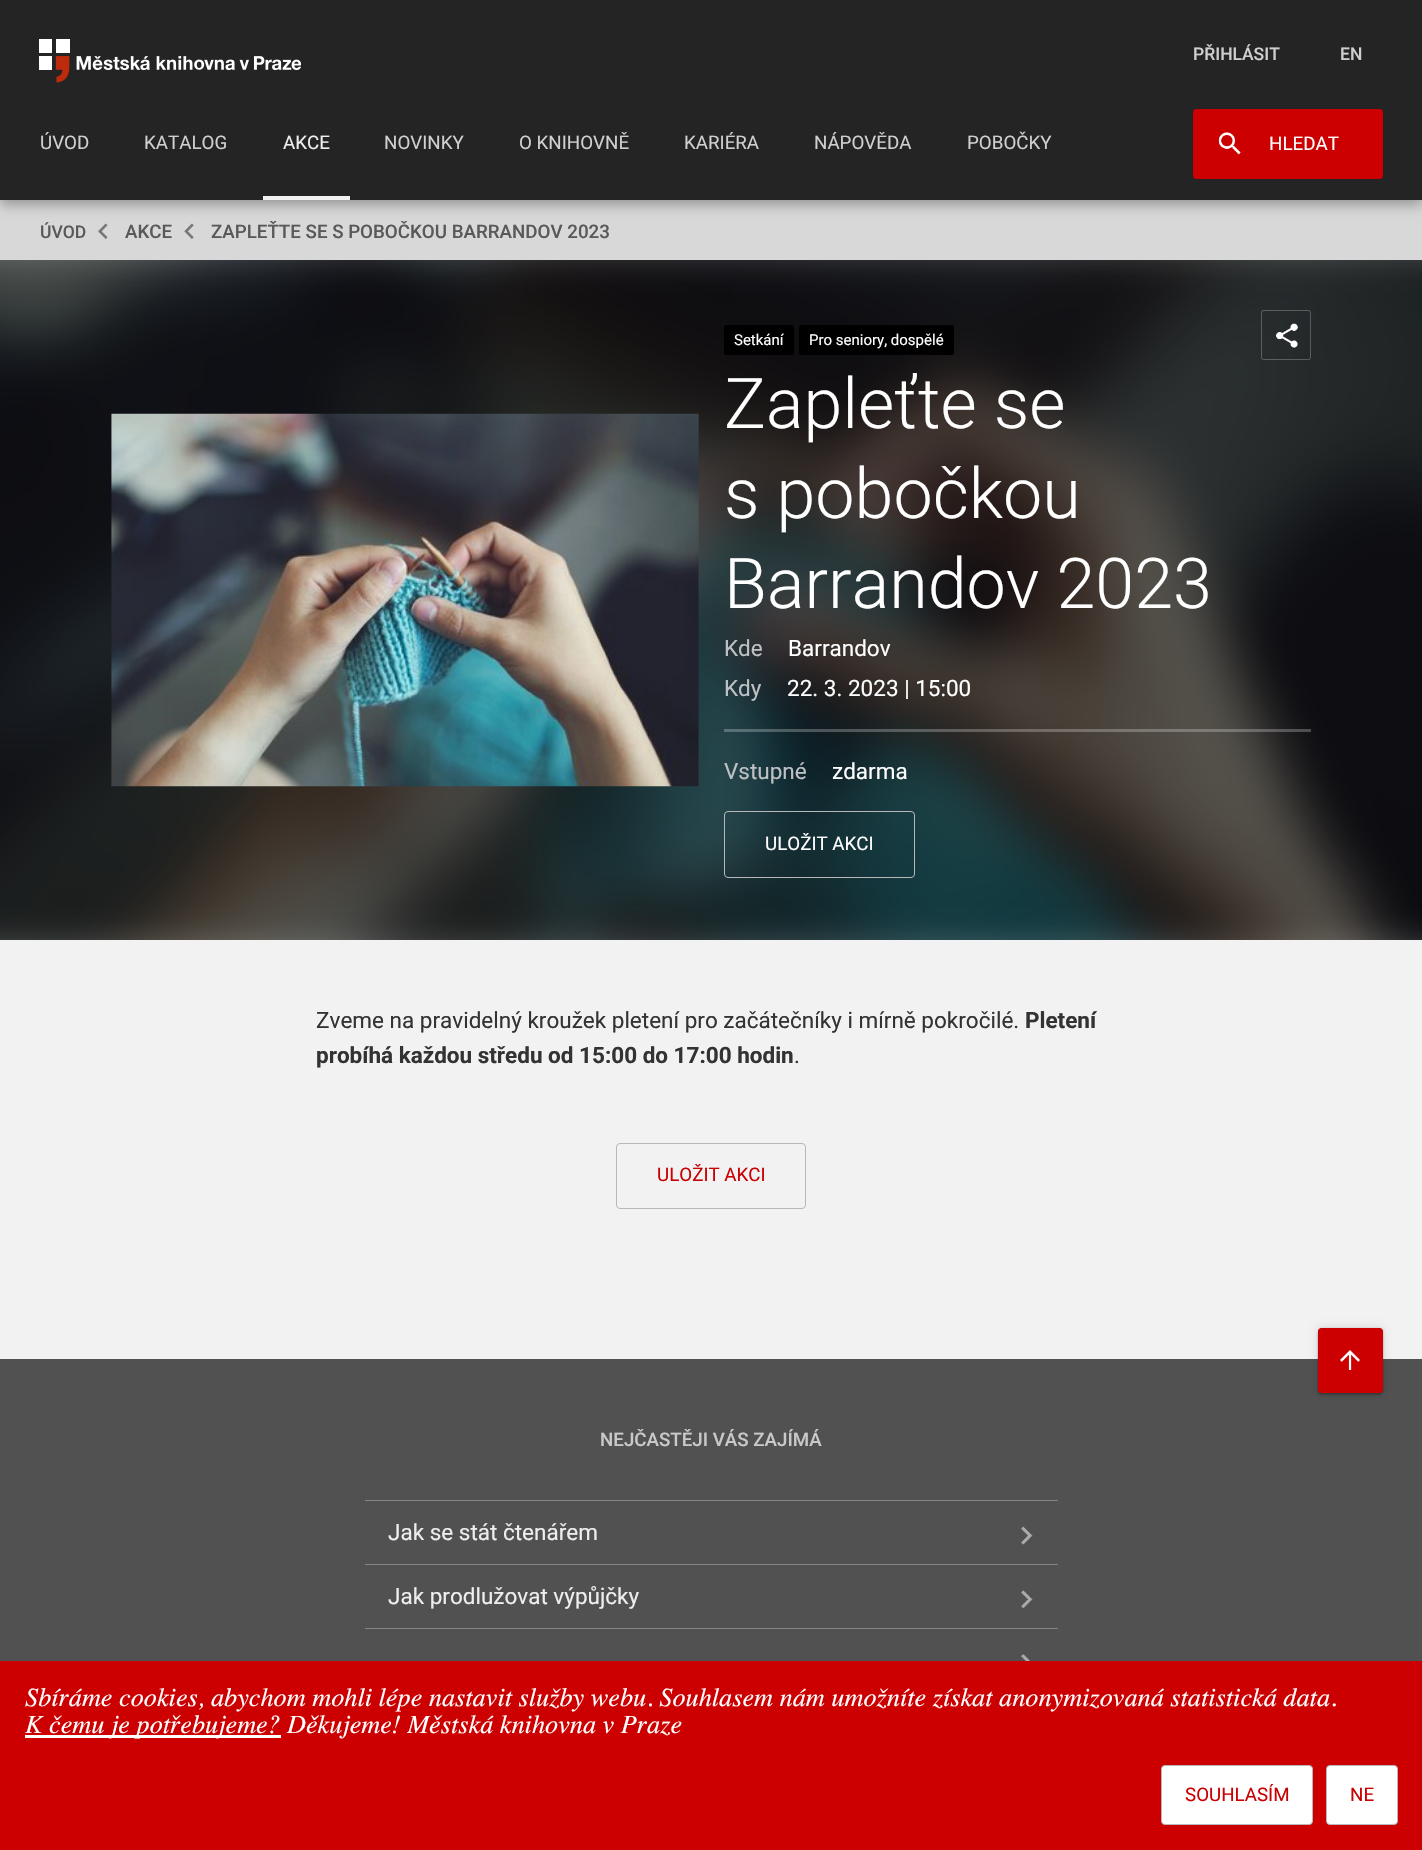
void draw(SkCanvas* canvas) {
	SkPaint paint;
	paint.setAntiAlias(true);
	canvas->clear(0xfff2f2f2);
	paint.setColor(0xffd8d8d8);
	canvas->drawRect(SkRect::MakeXYWH(0, 200, 1422, 60), paint);
	canvas->drawImageRect(SkImages::DeferredFromEncodedData(SkData::MakeFromFileName("img3.png")), SkRect::MakeXYWH(98, 223, 10, 17), SkSamplingOptions());
	canvas->drawImageRect(SkImages::DeferredFromEncodedData(SkData::MakeFromFileName("img4.png")), SkRect::MakeXYWH(184, 223, 10, 16), SkSamplingOptions());
	paint.setColor(0x4d000000);
	paint.setMaskFilter(SkMaskFilter::MakeBlur(kNormal_SkBlurStyle, 6));
	canvas->drawRect(SkRect::MakeXYWH(0, 5, 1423, 200), paint);
	paint.setMaskFilter(nullptr);
	paint.setColor(0xff242424);
	canvas->drawRect(SkRect::MakeXYWH(0, 0, 1422, 200), paint);
	canvas->drawImageRect(SkImages::DeferredFromEncodedData(SkData::MakeFromFileName("img1.png")), SkRect::MakeXYWH(39, 39, 262, 44), SkSamplingOptions());
	SkFont f1(fontMgr->matchFamilyStyle("Roboto", SkFontStyle(500, SkFontStyle::kNormal_Width, SkFontStyle::kUpright_Slant)), 17.5);
	f1.setSubpixel(true);
	paint.setColor(0xffcfcfcf);
	canvas->drawString("PŘIHLÁSIT", 1193, 60, f1, paint);
	canvas->drawString("EN", 1340, 60, f1, paint);
	SkFont f2(fontMgr->matchFamilyStyle("Roboto", SkFontStyle::Normal()), 18.75);
	f2.setSubpixel(true);
	canvas->drawString("ÚVOD", 40, 149, f2, paint);
	canvas->drawString("KATALOG", 144, 149, f2, paint);
	paint.setColor(0xfff2f2f2);
	canvas->drawRect(SkRect::MakeXYWH(263, 196, 87, 4), paint);
	paint.setColor(0xffeeeeee);
	canvas->drawString("AKCE", 283, 149, f2, paint);
	paint.setColor(0xffcfcfcf);
	canvas->drawString("NOVINKY", 384, 149, f2, paint);
	canvas->drawString("O KNIHOVNĚ", 519, 149, f2, paint);
	canvas->drawString("KARIÉRA", 684, 149, f2, paint);
	canvas->drawString("NÁPOVĚDA", 814, 149, f2, paint);
	canvas->drawString("POBOČKY", 967, 149, f2, paint);
	paint.setColor(0xffcc0000);
	canvas->drawRoundRect(SkRect::MakeXYWH(1193, 109, 190, 70), 4, 4, paint);
	canvas->drawImageRect(SkImages::DeferredFromEncodedData(SkData::MakeFromFileName("img2.png")), SkRect::MakeXYWH(1218, 132, 23, 23), SkSamplingOptions());
	paint.setStroke(true);
	paint.setStrokeWidth(1);
	canvas->drawRoundRect(SkRect::MakeXYWH(1193.5, 109.5, 189, 69), 3.5, 3.5, paint);
	paint.setStroke(false);
	paint.setColor(0xffffffff);
	canvas->drawString("HLEDAT", 1269, 150, f2, paint);
	paint.setColor(0xff595959);
	canvas->drawString("ÚVOD", 40, 238, f1, paint);
	SkFont f3(fontMgr->matchFamilyStyle("Roboto", SkFontStyle(500, SkFontStyle::kNormal_Width, SkFontStyle::kUpright_Slant)), 18.75);
	f3.setSubpixel(true);
	canvas->drawString("AKCE", 125, 238, f3, paint);
	canvas->drawString("ZAPLEŤTE SE S POBOČKOU BARRANDOV 2023", 211, 238, f3, paint);
	canvas->drawImageRect(SkImages::DeferredFromEncodedData(SkData::MakeFromFileName("img5.png")), SkRect::MakeXYWH(0, 260, 1422, 680), SkSamplingOptions());
	canvas->drawImageRect(SkImages::DeferredFromEncodedData(SkData::MakeFromFileName("img6.png")), SkRect::MakeXYWH(111, 413, 588, 374), SkSamplingOptions());
	paint.setColor(0xff000000);
	canvas->drawRoundRect(SkRect::MakeXYWH(724, 325, 70, 30), 2.5, 2.5, paint);
	SkFont f4(fontMgr->matchFamilyStyle("Roboto", SkFontStyle::Normal()), 15);
	f4.setSubpixel(true);
	paint.setColor(0xffffffff);
	canvas->drawString("Setkání", 734, 345, f4, paint);
	paint.setColor(0xff000000);
	canvas->drawRoundRect(SkRect::MakeXYWH(799, 325, 155, 30), 2.5, 2.5, paint);
	paint.setColor(0xffffffff);
	canvas->drawString("Pro seniory, dospělé", 809, 345, f4, paint);
	canvas->drawImageRect(SkImages::DeferredFromEncodedData(SkData::MakeFromFileName("img7.png")), SkRect::MakeXYWH(1276, 323, 22, 25), SkSamplingOptions());
	paint.setStroke(true);
	paint.setColor(0x3dffffff);
	canvas->drawRoundRect(SkRect::MakeXYWH(1261.5, 310.5, 49, 49), 2, 2, paint);
	SkFont f5(fontMgr->matchFamilyStyle("Roboto", SkFontStyle(300, SkFontStyle::kNormal_Width, SkFontStyle::kUpright_Slant)), 70);
	f5.setSubpixel(true);
	paint.setStroke(false);
	paint.setColor(0xffffffff);
	canvas->drawString("Zapleťte se", 724, 428, f5, paint);
	canvas->drawString("s pobočkou", 724, 518, f5, paint);
	canvas->drawString("Barrandov 2023", 724, 608, f5, paint);
	SkFont f6(fontMgr->matchFamilyStyle("Roboto", SkFontStyle::Normal()), 22.5);
	f6.setSubpixel(true);
	paint.setColor(0xffbec1c3);
	canvas->drawString("Kde", 724, 656, f6, paint);
	paint.setColor(0xffffffff);
	canvas->drawString("Barrandov", 788, 656, f6, paint);
	paint.setColor(0xffbec1c3);
	canvas->drawString("Kdy", 724, 696, f6, paint);
	paint.setColor(0xffffffff);
	canvas->drawString("22. 3. 2023 | 15:00", 787, 696, f6, paint);
	paint.setColor(0x40ffffff);
	canvas->drawRect(SkRect::MakeXYWH(724, 729, 587, 3), paint);
	paint.setColor(0xffbec1c3);
	canvas->drawString("Vstupné", 724, 779, f6, paint);
	paint.setColor(0xffffffff);
	canvas->drawString("zdarma", 832, 779, f6, paint);
	paint.setStroke(true);
	paint.setColor(0xffb8b8b8);
	canvas->drawRoundRect(SkRect::MakeXYWH(724.5, 811.5, 190, 66), 3.5, 3.5, paint);
	paint.setStroke(false);
	paint.setColor(0xffffffff);
	canvas->drawString("ULOŽIT AKCI", 765, 850, f2, paint);
	paint.setColor(0xff333333);
	canvas->drawString("Zveme na pravidelný kroužek pletení pro začátečníky i mírně pokročilé.", 316, 1028, f6, paint);
	SkFont f7(fontMgr->matchFamilyStyle("Roboto", SkFontStyle::Bold()), 22.5);
	f7.setSubpixel(true);
	canvas->drawString("Pletení", 1025, 1028, f7, paint);
	canvas->drawString("probíhá každou středu od 15:00 do 17:00 hodin", 316, 1063, f7, paint);
	canvas->drawString(".", 794, 1063, f6, paint);
	paint.setStroke(true);
	paint.setColor(0xffb8b8b8);
	canvas->drawRoundRect(SkRect::MakeXYWH(616.5, 1143.5, 189, 65), 3.5, 3.5, paint);
	paint.setStroke(false);
	paint.setColor(0xffca0002);
	canvas->drawString("ULOŽIT AKCI", 657, 1181, f2, paint);
	paint.setColor(0xff515151);
	canvas->drawRect(SkRect::MakeXYWH(0, 1359, 1422, 302), paint);
	paint.setColor(0x1f000000);
	paint.setMaskFilter(SkMaskFilter::MakeBlur(kNormal_SkBlurStyle, 1));
	canvas->drawRoundRect(SkRect::MakeXYWH(1318, 1328, 65, 65), 4, 4, paint);
	paint.setMaskFilter(nullptr);
	paint.setColor(0x3d000000);
	paint.setMaskFilter(SkMaskFilter::MakeBlur(kNormal_SkBlurStyle, 1));
	canvas->drawRoundRect(SkRect::MakeXYWH(1318, 1330, 65, 65), 4, 4, paint);
	paint.setMaskFilter(nullptr);
	paint.setColor(0x1f000000);
	paint.setMaskFilter(SkMaskFilter::MakeBlur(kNormal_SkBlurStyle, 5));
	canvas->drawRoundRect(SkRect::MakeXYWH(1318, 1328, 65, 65), 4, 4, paint);
	paint.setMaskFilter(nullptr);
	paint.setColor(0xffcc0000);
	canvas->drawRoundRect(SkRect::MakeXYWH(1318, 1328, 65, 65), 4, 4, paint);
	canvas->drawImageRect(SkImages::DeferredFromEncodedData(SkData::MakeFromFileName("img8.png")), SkRect::MakeXYWH(1340, 1350, 20, 20), SkSamplingOptions());
	paint.setStroke(true);
	canvas->drawRoundRect(SkRect::MakeXYWH(1318.5, 1328.5, 64, 64), 3.5, 3.5, paint);
	paint.setStroke(false);
	paint.setColor(0xffc9c9c9);
	canvas->drawString("NEJČASTĚJI VÁS ZAJÍMÁ", 600, 1446, f3, paint);
	paint.setColor(0xff858585);
	canvas->drawRect(SkRect::MakeXYWH(365, 1500, 693, 1), paint);
	canvas->drawRect(SkRect::MakeXYWH(365, 1564, 693, 1), paint);
	paint.setColor(0xffeeeeee);
	canvas->drawString("Jak se stát čtenářem", 388, 1540, f6, paint);
	canvas->drawImageRect(SkImages::DeferredFromEncodedData(SkData::MakeFromFileName("img9.png")), SkRect::MakeXYWH(1021, 1526, 12, 19), SkSamplingOptions());
	paint.setColor(0xff858585);
	canvas->drawRect(SkRect::MakeXYWH(365, 1628, 693, 1), paint);
	paint.setColor(0xffeeeeee);
	canvas->drawString("Jak prodlužovat výpůjčky", 388, 1604, f6, paint);
	canvas->drawImageRect(SkImages::DeferredFromEncodedData(SkData::MakeFromFileName("img10.png")), SkRect::MakeXYWH(1021, 1590, 12, 19), SkSamplingOptions());
	canvas->drawImageRect(SkImages::DeferredFromEncodedData(SkData::MakeFromFileName("img11.png")), SkRect::MakeXYWH(1021, 1654, 10, 7), SkSamplingOptions());
	paint.setColor(0xffcc0000);
	canvas->drawRect(SkRect::MakeXYWH(0, 1661, 1422, 189), paint);
	SkFont f8(fontMgr->matchFamilyStyle("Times", SkFontStyle::Italic()), 26.25);
	f8.setSubpixel(true);
	paint.setColor(0xffffffff);
	canvas->drawString("Sbíráme cookies, abychom mohli lépe nastavit služby webu. Souhlasem nám umožníte získat anonymizovaná statistická data.", 25, 1706, f8, paint);
	canvas->drawRect(SkRect::MakeXYWH(25, 1735, 256, 3), paint);
	canvas->drawString("K čemu je potřebujeme?", 25, 1733, f8, paint);
	canvas->drawString("Děkujeme! Městská knihovna v Praze", 287, 1733, f8, paint);
	canvas->drawRoundRect(SkRect::MakeXYWH(1161.5, 1765.5, 151, 59), 3.5, 3.5, paint);
	paint.setStroke(true);
	paint.setColor(0xffb8b8b8);
	canvas->drawRoundRect(SkRect::MakeXYWH(1161.5, 1765.5, 151, 59), 3.5, 3.5, paint);
	paint.setStroke(false);
	paint.setColor(0xffca0002);
	canvas->drawString("SOUHLASÍM", 1185, 1801, f2, paint);
	paint.setColor(0xffffffff);
	canvas->drawRoundRect(SkRect::MakeXYWH(1326.5, 1765.5, 71, 59), 3.5, 3.5, paint);
	paint.setStroke(true);
	paint.setColor(0xffb8b8b8);
	canvas->drawRoundRect(SkRect::MakeXYWH(1326.5, 1765.5, 71, 59), 3.5, 3.5, paint);
	paint.setStroke(false);
	paint.setColor(0xffca0002);
	canvas->drawString("NE", 1350, 1801, f2, paint);
}
